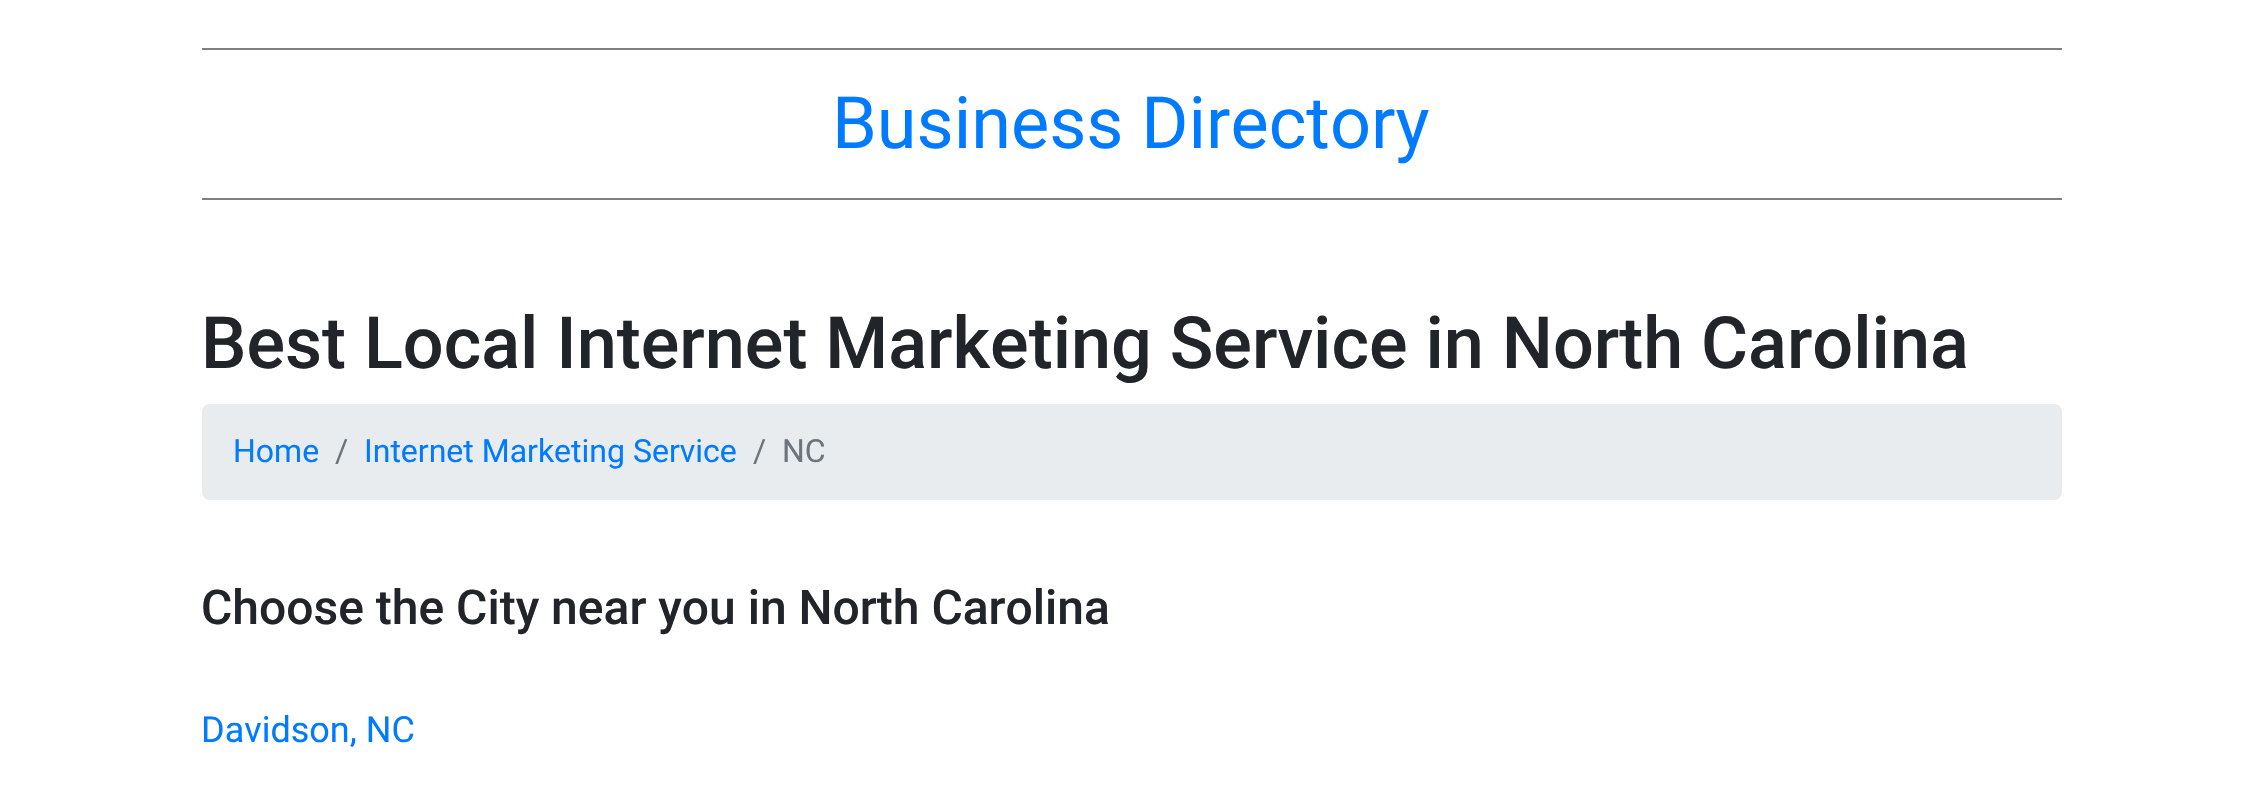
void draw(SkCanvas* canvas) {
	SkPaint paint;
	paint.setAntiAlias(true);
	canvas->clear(0xffffffff);
	paint.setColor(0xff808080);
	canvas->drawRect(SkRect::MakeXYWH(202, 48, 1860, 2), paint);
	canvas->drawRect(SkRect::MakeXYWH(202, 198, 1860, 2), paint);
	SkFont f1(fontMgr->matchFamilyStyle("Roboto", SkFontStyle::Normal()), 72);
	f1.setSubpixel(true);
	paint.setColor(0xff007bff);
	canvas->drawString("Business Directory", 832, 148, f1, paint);
	SkFont f2(fontMgr->matchFamilyStyle("Roboto", SkFontStyle(500, SkFontStyle::kNormal_Width, SkFontStyle::kUpright_Slant)), 72);
	f2.setSubpixel(true);
	paint.setColor(0xff212529);
	canvas->drawString("Best Local Internet Marketing Service in North Carolina", 201, 368, f2, paint);
	paint.setColor(0xffe9ecef);
	canvas->drawRoundRect(SkRect::MakeXYWH(202, 404, 1860, 96), 8, 8, paint);
	SkFont f3(fontMgr->matchFamilyStyle("Roboto", SkFontStyle::Normal()), 32);
	f3.setSubpixel(true);
	paint.setColor(0xff007bff);
	canvas->drawString("Home", 233, 462, f3, paint);
	paint.setColor(0xff6c757d);
	canvas->drawString("/", 335, 462, f3, paint);
	paint.setColor(0xff007bff);
	canvas->drawString("Internet Marketing Service", 364, 462, f3, paint);
	paint.setColor(0xff6c757d);
	canvas->drawString("/", 753, 462, f3, paint);
	canvas->drawString("NC", 782, 462, f3, paint);
	SkFont f4(fontMgr->matchFamilyStyle("Roboto", SkFontStyle(500, SkFontStyle::kNormal_Width, SkFontStyle::kUpright_Slant)), 48);
	f4.setSubpixel(true);
	paint.setColor(0xff212529);
	canvas->drawString("Choose the City near you in North Carolina", 201, 624, f4, paint);
	SkFont f5(fontMgr->matchFamilyStyle("Roboto", SkFontStyle::Normal()), 36);
	f5.setSubpixel(true);
	paint.setColor(0xff007bff);
	canvas->drawString("Davidson, NC", 201, 742, f5, paint);
}
